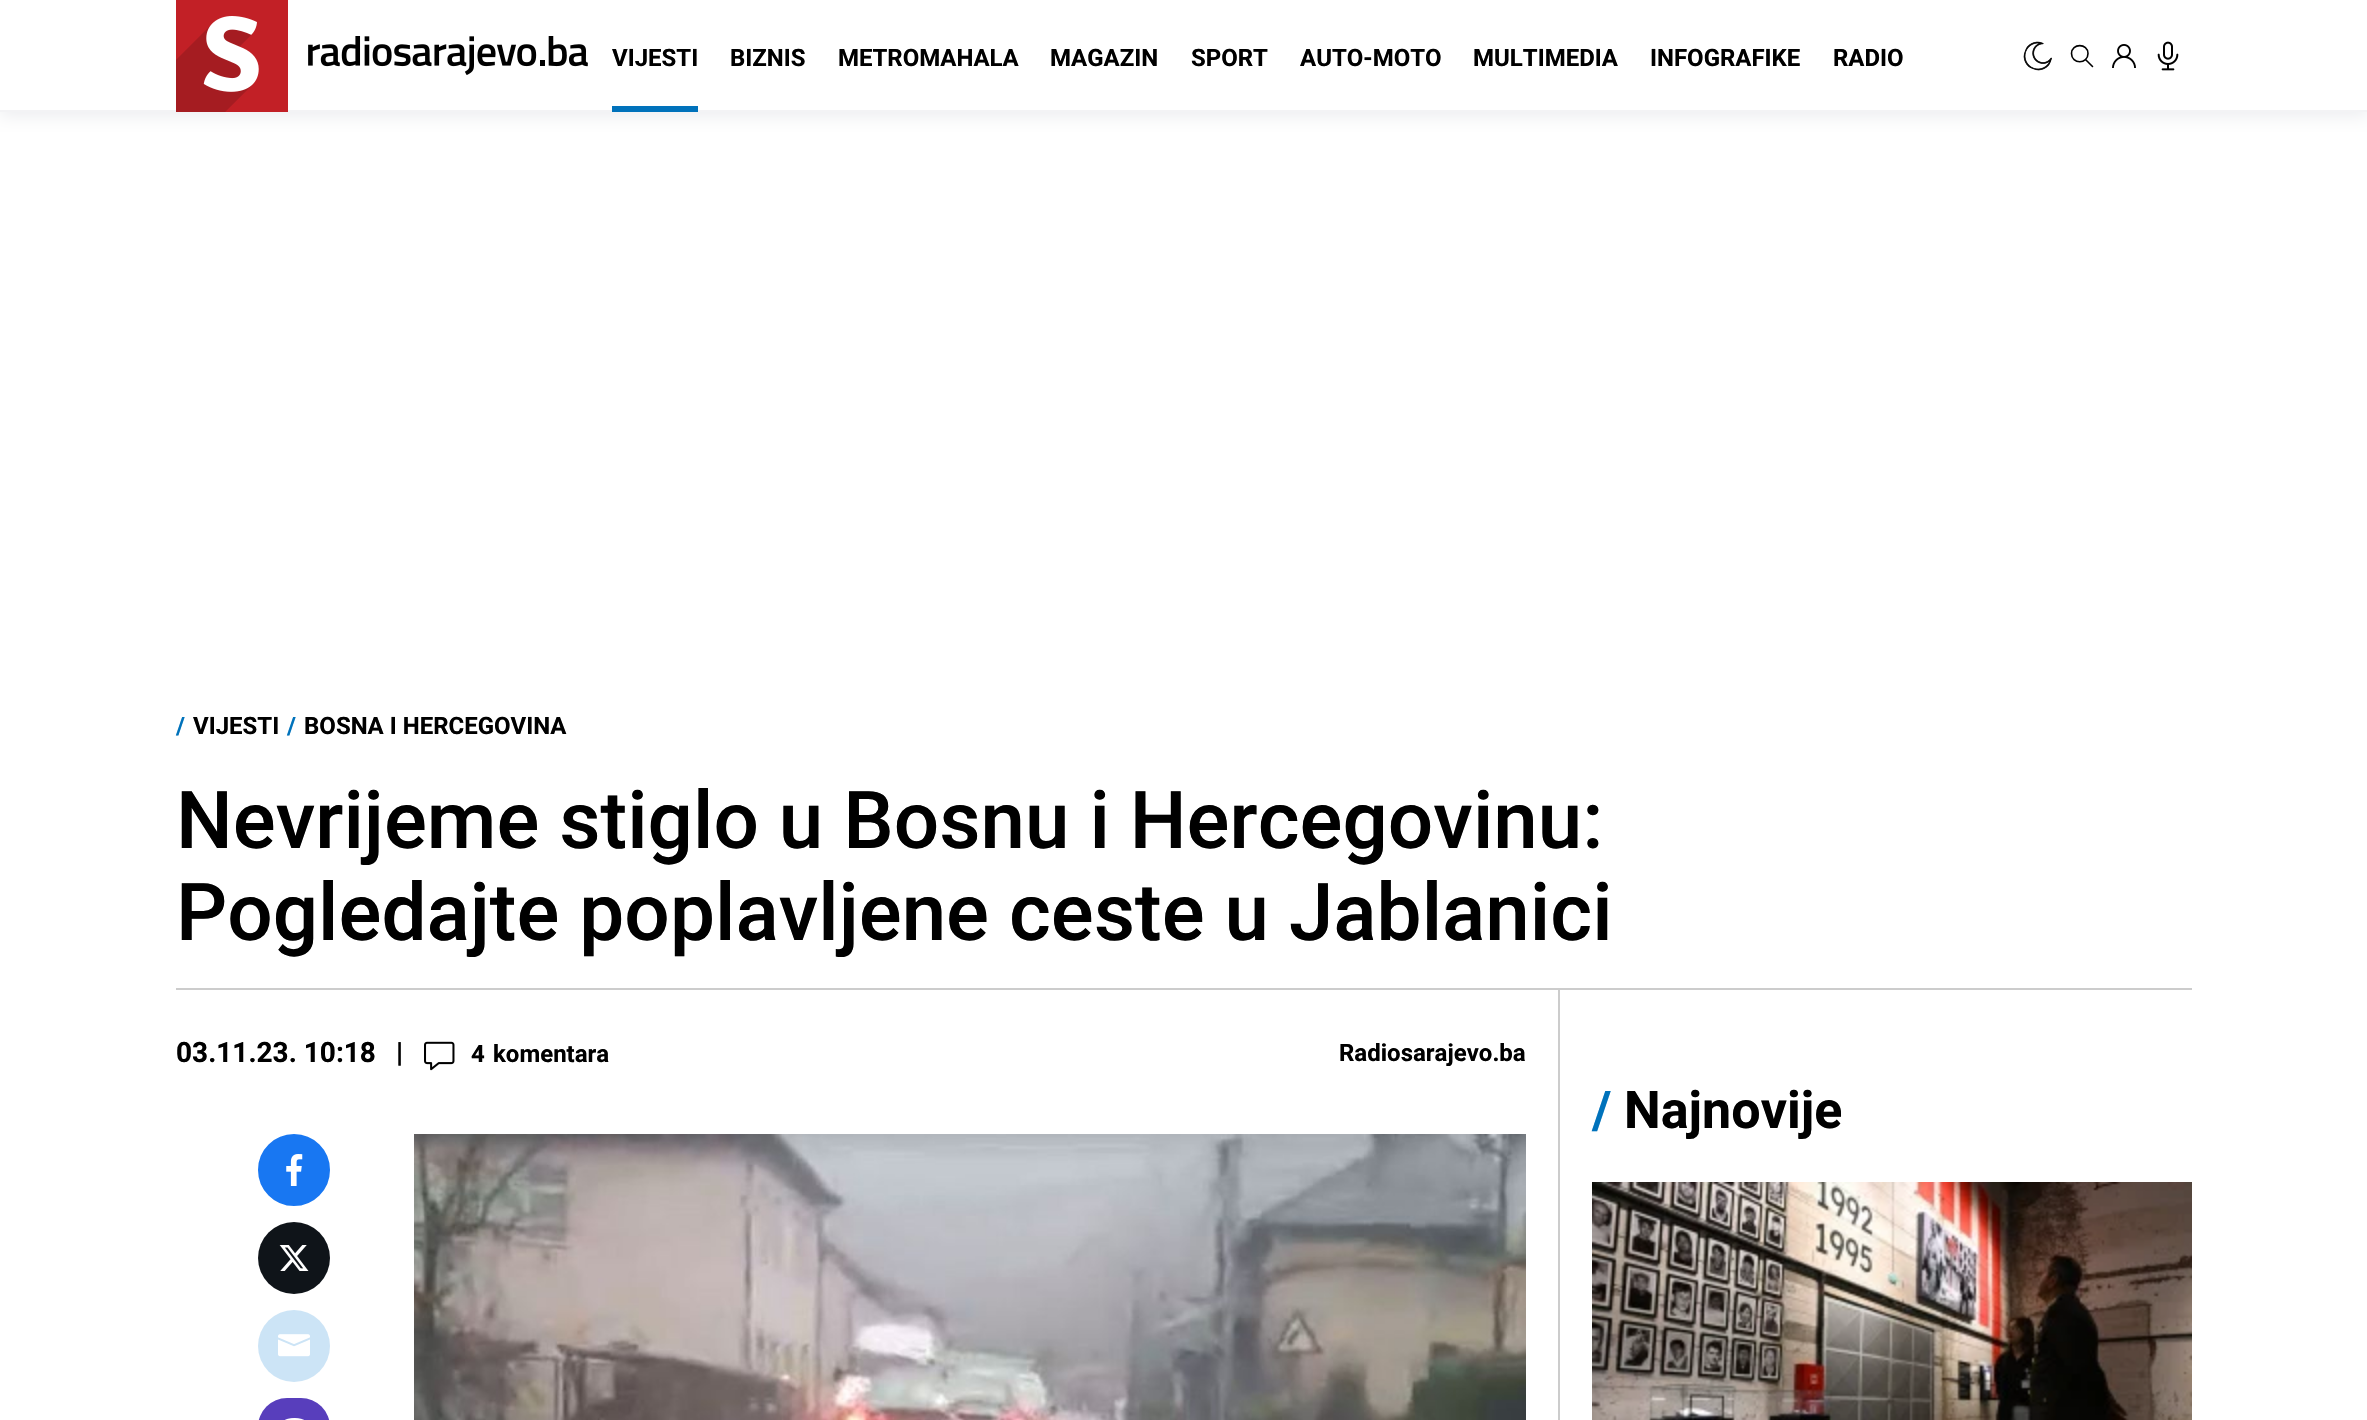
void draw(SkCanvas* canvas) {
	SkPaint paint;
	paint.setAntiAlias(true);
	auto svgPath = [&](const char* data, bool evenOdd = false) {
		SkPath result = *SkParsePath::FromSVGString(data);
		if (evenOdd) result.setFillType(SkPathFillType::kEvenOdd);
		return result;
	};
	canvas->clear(0xffffffff);
	canvas->save();
	canvas->clipRect(SkRect::MakeXYWH(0, 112, 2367, 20));
	paint.setColor(0xffecedf0);
	paint.setMaskFilter(SkMaskFilter::MakeBlur(kNormal_SkBlurStyle, 8));
	canvas->drawRect(SkRect::MakeXYWH(0, 4, 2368, 112), paint);
	paint.setMaskFilter(nullptr);
	canvas->restore();
	paint.setColor(0xfff3f3f5);
	canvas->drawRect(SkRect::MakeXYWH(0, 110, 2367, 2), paint);
	paint.setColor(0xffc22026);
	canvas->drawRect(SkRect::MakeXYWH(176, 0, 112, 112), paint);
	canvas->drawImageRect(SkImages::DeferredFromEncodedData(SkData::MakeFromFileName("img1.png")), SkRect::MakeXYWH(176, 16, 83, 96), SkSamplingOptions());
	canvas->drawImageRect(SkImages::DeferredFromEncodedData(SkData::MakeFromFileName("img2.png")), SkRect::MakeXYWH(308, 36, 280, 39), SkSamplingOptions());
	SkFont f1(fontMgr->matchFamilyStyle("Roboto", SkFontStyle::Bold()), 24);
	f1.setSubpixel(true);
	paint.setColor(0xff000000);
	canvas->drawString("VIJESTI", 612, 66, f1, paint);
	paint.setColor(0xff0072bb);
	canvas->drawRect(SkRect::MakeXYWH(612, 106, 86, 6), paint);
	paint.setColor(0xff000000);
	canvas->drawString("BIZNIS", 730, 66, f1, paint);
	canvas->drawString("METROMAHALA", 838, 66, f1, paint);
	canvas->drawString("MAGAZIN", 1050, 66, f1, paint);
	canvas->drawString("SPORT", 1191, 66, f1, paint);
	canvas->drawString("AUTO-MOTO", 1300, 66, f1, paint);
	canvas->drawString("MULTIMEDIA", 1473, 66, f1, paint);
	canvas->drawString("INFOGRAFIKE", 1650, 66, f1, paint);
	canvas->drawString("RADIO", 1833, 66, f1, paint);
	canvas->drawImageRect(SkImages::DeferredFromEncodedData(SkData::MakeFromFileName("img3.png")), SkRect::MakeXYWH(2023, 41, 29, 30), SkSamplingOptions());
	paint.setStroke(true);
	paint.setStrokeWidth(1.6);
	paint.setStrokeCap(SkPaint::kRound_Cap);
	paint.setStrokeJoin(SkPaint::kRound_Join);
	canvas->drawPath(svgPath("M2092.5 66.5L2085.5 59.5M2088 53.5C2088 64.5 2071.5 64.5 2071.5 53.5C2071.5 43 2088 43 2088 53.5Z"), paint);
	canvas->drawImageRect(SkImages::DeferredFromEncodedData(SkData::MakeFromFileName("img4.png")), SkRect::MakeXYWH(2112, 44, 24, 24), SkSamplingOptions());
	canvas->drawImageRect(SkImages::DeferredFromEncodedData(SkData::MakeFromFileName("img5.png")), SkRect::MakeXYWH(2157, 41, 22, 30), SkSamplingOptions());
	paint.setStroke(false);
	paint.setColor(0xff0072bb);
	canvas->drawString("/", 176, 734, f1, paint);
	paint.setColor(0xff000000);
	canvas->drawString("VIJESTI", 193, 734, f1, paint);
	paint.setColor(0xff0072bb);
	canvas->drawString("/", 287, 734, f1, paint);
	paint.setColor(0xff000000);
	canvas->drawString("BOSNA I HERCEGOVINA", 304, 734, f1, paint);
	SkFont f2(fontMgr->matchFamilyStyle("Roboto", SkFontStyle(500, SkFontStyle::kNormal_Width, SkFontStyle::kUpright_Slant)), 80);
	f2.setSubpixel(true);
	canvas->drawString("Nevrijeme stiglo u Bosnu i Hercegovinu:", 176, 848, f2, paint);
	canvas->drawString("Pogledajte poplavljene ceste u Jablanici", 176, 940, f2, paint);
	paint.setColor(0xffcccccc);
	canvas->drawRect(SkRect::MakeXYWH(176, 988, 2016, 2), paint);
	canvas->drawRect(SkRect::MakeXYWH(1558, 990, 2, 430), paint);
	SkFont f3(fontMgr->matchFamilyStyle("Roboto", SkFontStyle::Bold()), 28);
	f3.setSubpixel(true);
	paint.setColor(0xff000000);
	canvas->drawString("03.11.23. 10:18", 176, 1062, f3, paint);
	canvas->drawString("|", 396, 1062, f3, paint);
	canvas->drawImageRect(SkImages::DeferredFromEncodedData(SkData::MakeFromFileName("img6.png")), SkRect::MakeXYWH(424, 1041, 31, 30), SkSamplingOptions());
	canvas->drawString("4", 471, 1062, f1, paint);
	canvas->drawString("komentara", 493, 1062, f1, paint);
	canvas->drawString("Radiosarajevo.ba", 1339, 1061, f1, paint);
	paint.setColor(0xff1877f2);
	canvas->drawCircle(294, 1170, 35, paint);
	paint.setStroke(true);
	paint.setStrokeWidth(2);
	paint.setStrokeCap(SkPaint::kButt_Cap);
	paint.setStrokeJoin(SkPaint::kMiter_Join);
	canvas->drawCircle(294, 1170, 35, paint);
	canvas->drawImageRect(SkImages::DeferredFromEncodedData(SkData::MakeFromFileName("img7.png")), SkRect::MakeXYWH(286, 1154, 17, 32), SkSamplingOptions());
	paint.setStroke(false);
	paint.setColor(0xff0f1419);
	canvas->drawCircle(294, 1258, 36, paint);
	canvas->drawImageRect(SkImages::DeferredFromEncodedData(SkData::MakeFromFileName("img8.png")), SkRect::MakeXYWH(279, 1245, 30, 26), SkSamplingOptions());
	paint.setColor(0xffcce4f6);
	canvas->drawCircle(294, 1346, 36, paint);
	canvas->drawImageRect(SkImages::DeferredFromEncodedData(SkData::MakeFromFileName("img9.png")), SkRect::MakeXYWH(278, 1334, 32, 23), SkSamplingOptions());
	paint.setColor(0xff583ebc);
	canvas->drawRoundRect(SkRect::MakeXYWH(258, 1398, 72, 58), 36, 36, paint);
	canvas->drawImageRect(SkImages::DeferredFromEncodedData(SkData::MakeFromFileName("img10.png")), SkRect::MakeXYWH(285, 1418, 19, 2), SkSamplingOptions());
	canvas->drawImageRect(SkImages::DeferredFromEncodedData(SkData::MakeFromFileName("img11.png")), SkRect::MakeXYWH(414, 1134, 1112, 286), SkSamplingOptions());
	SkFont f4(fontMgr->matchFamilyStyle("Roboto", SkFontStyle::Bold()), 52);
	f4.setSubpixel(true);
	paint.setColor(0xff0072bb);
	canvas->drawString("/", 1592, 1128, f4, paint);
	paint.setColor(0xff000000);
	canvas->drawString("Najnovije", 1624, 1128, f4, paint);
	canvas->drawImageRect(SkImages::DeferredFromEncodedData(SkData::MakeFromFileName("img12.png")), SkRect::MakeXYWH(1592, 1182, 600, 238), SkSamplingOptions());
}
